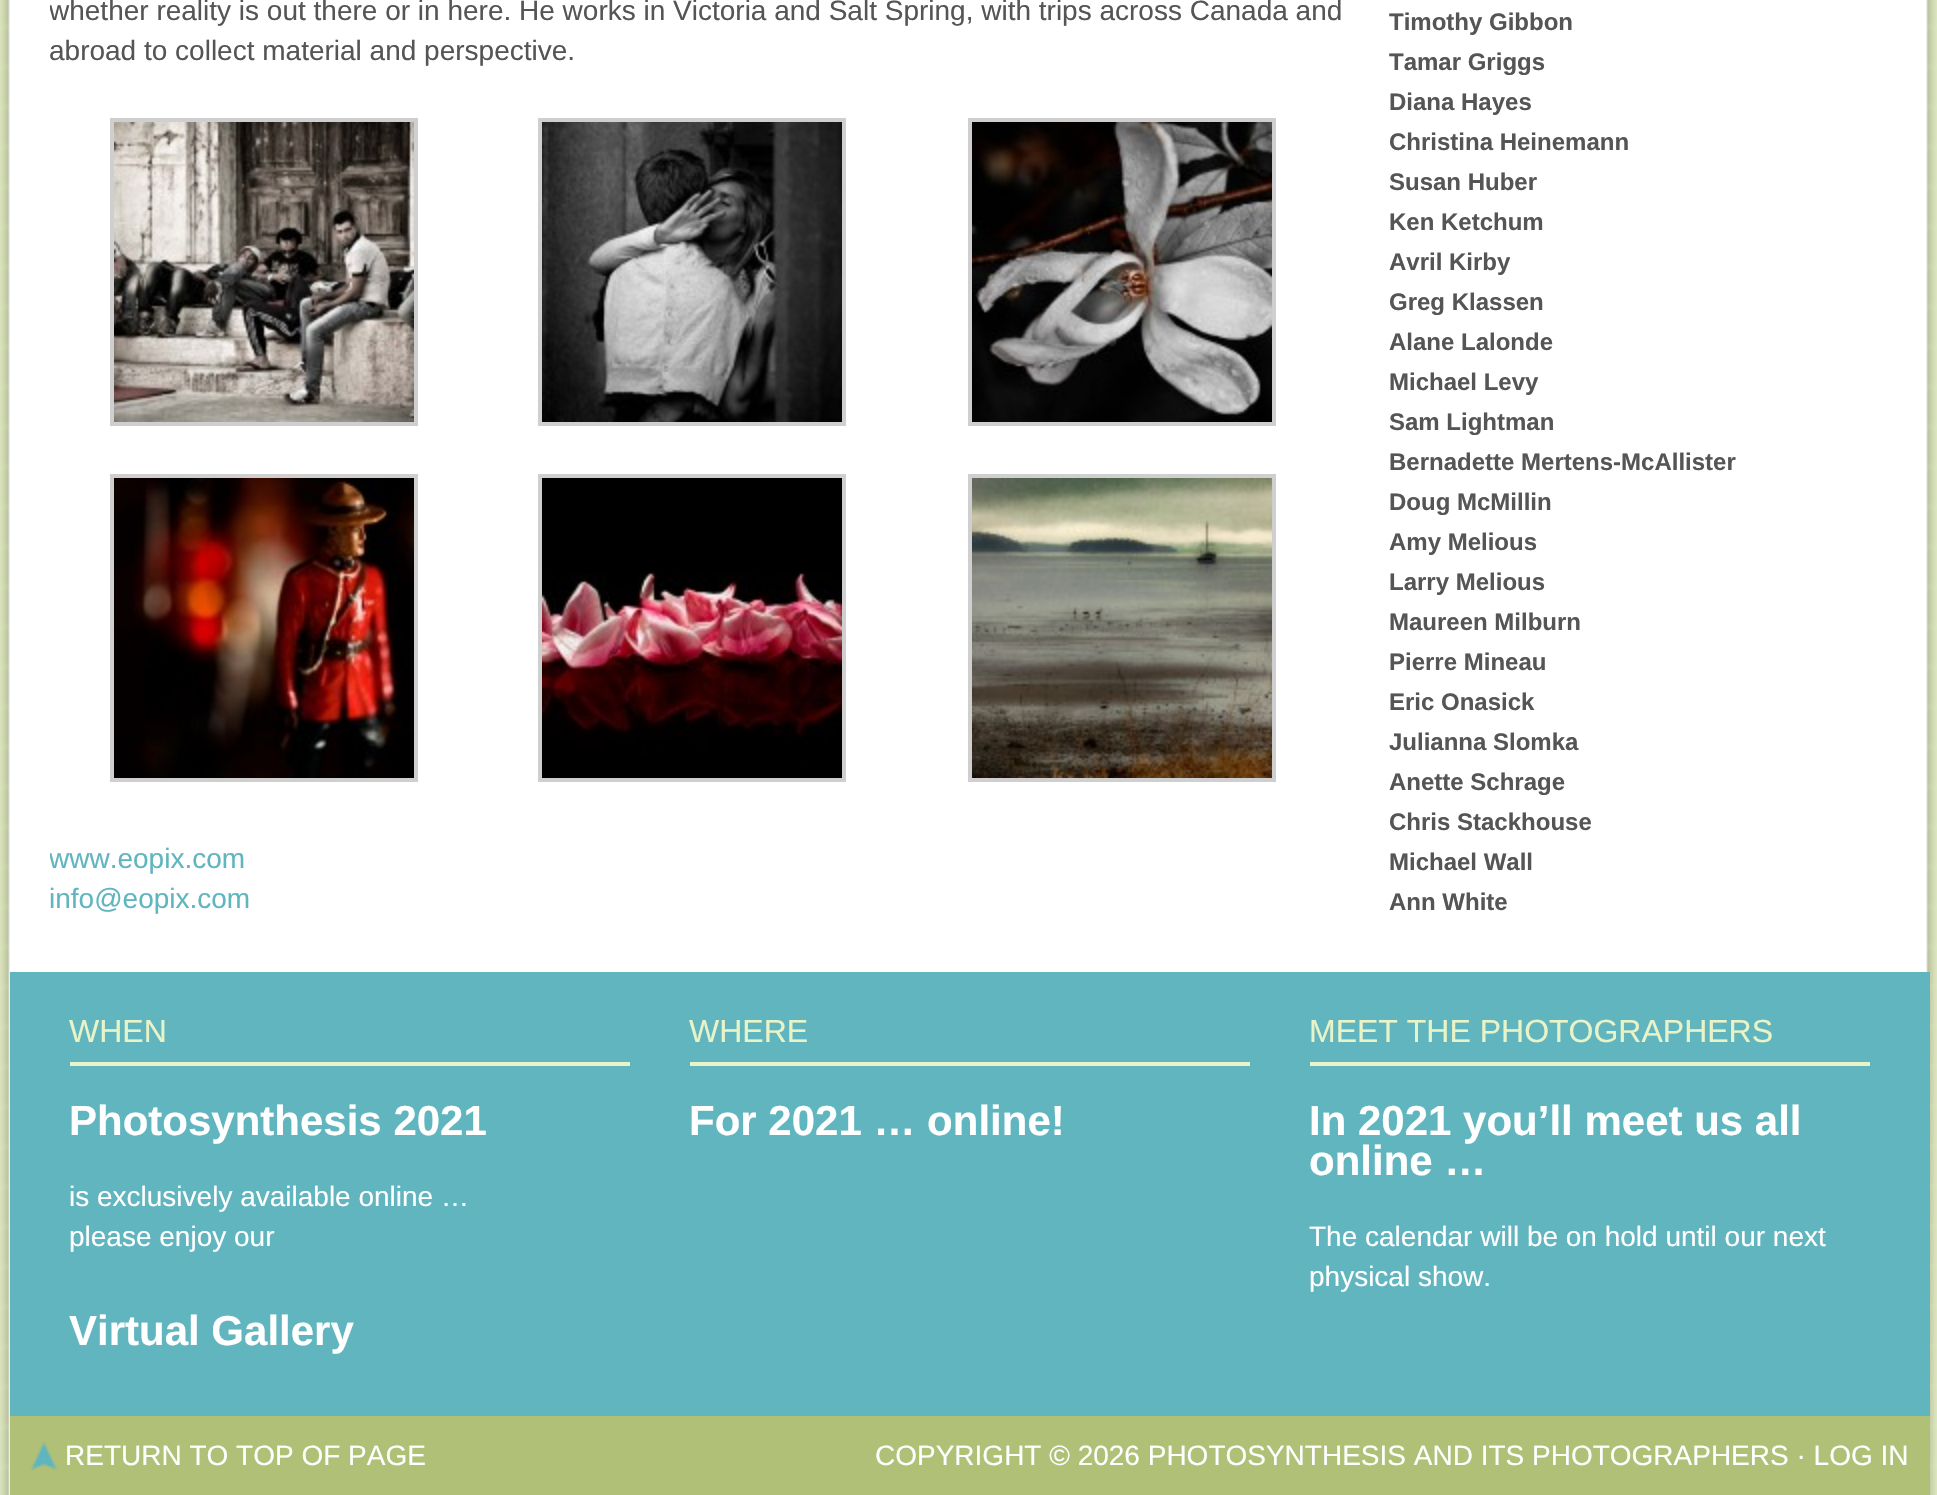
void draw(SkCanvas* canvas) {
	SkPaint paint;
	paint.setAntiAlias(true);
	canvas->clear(0xffffffff);
	canvas->drawImageRect(SkImages::DeferredFromEncodedData(SkData::MakeFromFileName("img1.png")), SkRect::MakeXYWH(0, 0, 1937, 1495), SkSamplingOptions());
	canvas->save();
	canvas->clipRect(SkRect::MakeXYWH(50, 0, 1300, 946));
	SkFont f1(fontMgr->matchFamilyStyle("Liberation Sans", SkFontStyle::Normal()), 28);
	f1.setSubpixel(true);
	paint.setColor(0xff555555);
	canvas->drawString("whether reality is out there or in here. He works in Victoria and Salt Spring, with trips across Canada and", 49, 20, f1, paint);
	canvas->restore();
	canvas->drawString("abroad to collect material and perspective.", 49, 60, f1, paint);
	paint.setStroke(true);
	paint.setStrokeWidth(4);
	paint.setColor(0xffcfcfcf);
	canvas->drawRect(SkRect::MakeXYWH(112, 120, 304, 304), paint);
	canvas->drawImageRect(SkImages::DeferredFromEncodedData(SkData::MakeFromFileName("img2.png")), SkRect::MakeXYWH(114, 122, 300, 300), SkSamplingOptions());
	canvas->drawRect(SkRect::MakeXYWH(540, 120, 304, 304), paint);
	canvas->drawImageRect(SkImages::DeferredFromEncodedData(SkData::MakeFromFileName("img3.png")), SkRect::MakeXYWH(542, 122, 300, 300), SkSamplingOptions());
	canvas->drawRect(SkRect::MakeXYWH(970, 120, 304, 304), paint);
	canvas->drawImageRect(SkImages::DeferredFromEncodedData(SkData::MakeFromFileName("img4.png")), SkRect::MakeXYWH(972, 122, 300, 300), SkSamplingOptions());
	canvas->drawRect(SkRect::MakeXYWH(112, 476, 304, 304), paint);
	canvas->drawImageRect(SkImages::DeferredFromEncodedData(SkData::MakeFromFileName("img5.png")), SkRect::MakeXYWH(114, 478, 300, 300), SkSamplingOptions());
	canvas->drawRect(SkRect::MakeXYWH(540, 476, 304, 304), paint);
	canvas->drawImageRect(SkImages::DeferredFromEncodedData(SkData::MakeFromFileName("img6.png")), SkRect::MakeXYWH(542, 478, 300, 300), SkSamplingOptions());
	canvas->drawRect(SkRect::MakeXYWH(970, 476, 304, 304), paint);
	canvas->drawImageRect(SkImages::DeferredFromEncodedData(SkData::MakeFromFileName("img7.png")), SkRect::MakeXYWH(972, 478, 300, 300), SkSamplingOptions());
	canvas->save();
	canvas->clipRect(SkRect::MakeXYWH(50, 0, 1300, 946));
	paint.setStroke(false);
	paint.setColor(0xff60b5bf);
	canvas->drawString("www.eopix.com", 49, 868, f1, paint);
	canvas->restore();
	canvas->drawString("info@eopix.com", 49, 908, f1, paint);
	SkFont f2(fontMgr->matchFamilyStyle("Liberation Sans", SkFontStyle::Bold()), 24);
	f2.setSubpixel(true);
	paint.setColor(0xff555555);
	canvas->drawString("Timothy Gibbon", 1389, 30, f2, paint);
	canvas->drawString("Tamar Griggs", 1389, 70, f2, paint);
	canvas->drawString("Diana Hayes", 1389, 110, f2, paint);
	canvas->drawString("Christina Heinemann", 1389, 150, f2, paint);
	canvas->drawString("Susan Huber", 1389, 190, f2, paint);
	canvas->drawString("Ken Ketchum", 1389, 230, f2, paint);
	canvas->drawString("Avril Kirby", 1389, 270, f2, paint);
	canvas->drawString("Greg Klassen", 1389, 310, f2, paint);
	canvas->drawString("Alane Lalonde", 1389, 350, f2, paint);
	canvas->drawString("Michael Levy", 1389, 390, f2, paint);
	canvas->drawString("Sam Lightman", 1389, 430, f2, paint);
	canvas->drawString("Bernadette Mertens-McAllister", 1389, 470, f2, paint);
	canvas->drawString("Doug McMillin", 1389, 510, f2, paint);
	canvas->drawString("Amy Melious", 1389, 550, f2, paint);
	canvas->drawString("Larry Melious", 1389, 590, f2, paint);
	canvas->drawString("Maureen Milburn", 1389, 630, f2, paint);
	canvas->drawString("Pierre Mineau", 1389, 670, f2, paint);
	canvas->drawString("Eric Onasick", 1389, 710, f2, paint);
	canvas->drawString("Julianna Slomka", 1389, 750, f2, paint);
	canvas->drawString("Anette Schrage", 1389, 790, f2, paint);
	canvas->drawString("Chris Stackhouse", 1389, 830, f2, paint);
	canvas->drawString("Michael Wall", 1389, 870, f2, paint);
	canvas->drawString("Ann White", 1389, 910, f2, paint);
	paint.setColor(0xff60b5bf);
	canvas->drawRect(SkRect::MakeXYWH(10, 972, 1920, 444), paint);
	paint.setColor(0xffe9f3c8);
	canvas->drawRect(SkRect::MakeXYWH(70, 1062, 560, 4), paint);
	SkFont f3(fontMgr->matchFamilyStyle("Liberation Sans", SkFontStyle::Normal()), 32);
	f3.setSubpixel(true);
	canvas->drawString("WHEN", 69, 1042, f3, paint);
	SkFont f4(fontMgr->matchFamilyStyle("Liberation Sans", SkFontStyle::Bold()), 42);
	f4.setSubpixel(true);
	paint.setColor(0xffffffff);
	canvas->drawString("Photosynthesis 2021", 69, 1135, f4, paint);
	canvas->drawString("is exclusively available online …", 69, 1206, f1, paint);
	canvas->drawString("please enjoy our", 69, 1246, f1, paint);
	canvas->drawString("Virtual Gallery", 69, 1345, f4, paint);
	paint.setColor(0xffe9f3c8);
	canvas->drawRect(SkRect::MakeXYWH(690, 1062, 560, 4), paint);
	canvas->drawString("WHERE", 689, 1042, f3, paint);
	paint.setColor(0xffffffff);
	canvas->drawString("For 2021 … online!", 689, 1135, f4, paint);
	paint.setColor(0xffe9f3c8);
	canvas->drawRect(SkRect::MakeXYWH(1310, 1062, 560, 4), paint);
	canvas->drawString("MEET THE PHOTOGRAPHERS", 1309, 1042, f3, paint);
	paint.setColor(0xffffffff);
	canvas->drawString("In 2021 you’ll meet us all", 1309, 1135, f4, paint);
	canvas->drawString("online …", 1309, 1175, f4, paint);
	canvas->drawString("The calendar will be on hold until our next", 1309, 1246, f1, paint);
	canvas->drawString("physical show.", 1309, 1286, f1, paint);
	paint.setColor(0xffb0c077);
	canvas->drawRect(SkRect::MakeXYWH(10, 1416, 1920, 79), paint);
	canvas->drawImageRect(SkImages::DeferredFromEncodedData(SkData::MakeFromFileName("img8.png")), SkRect::MakeXYWH(30, 1442, 28, 28), SkSamplingOptions());
	paint.setColor(0xffffffff);
	canvas->drawString("RETURN TO TOP OF PAGE", 65, 1465, f1, paint);
	canvas->drawString("COPYRIGHT © 2026 PHOTOSYNTHESIS AND ITS PHOTOGRAPHERS · LOG IN", 875, 1465, f1, paint);
}
